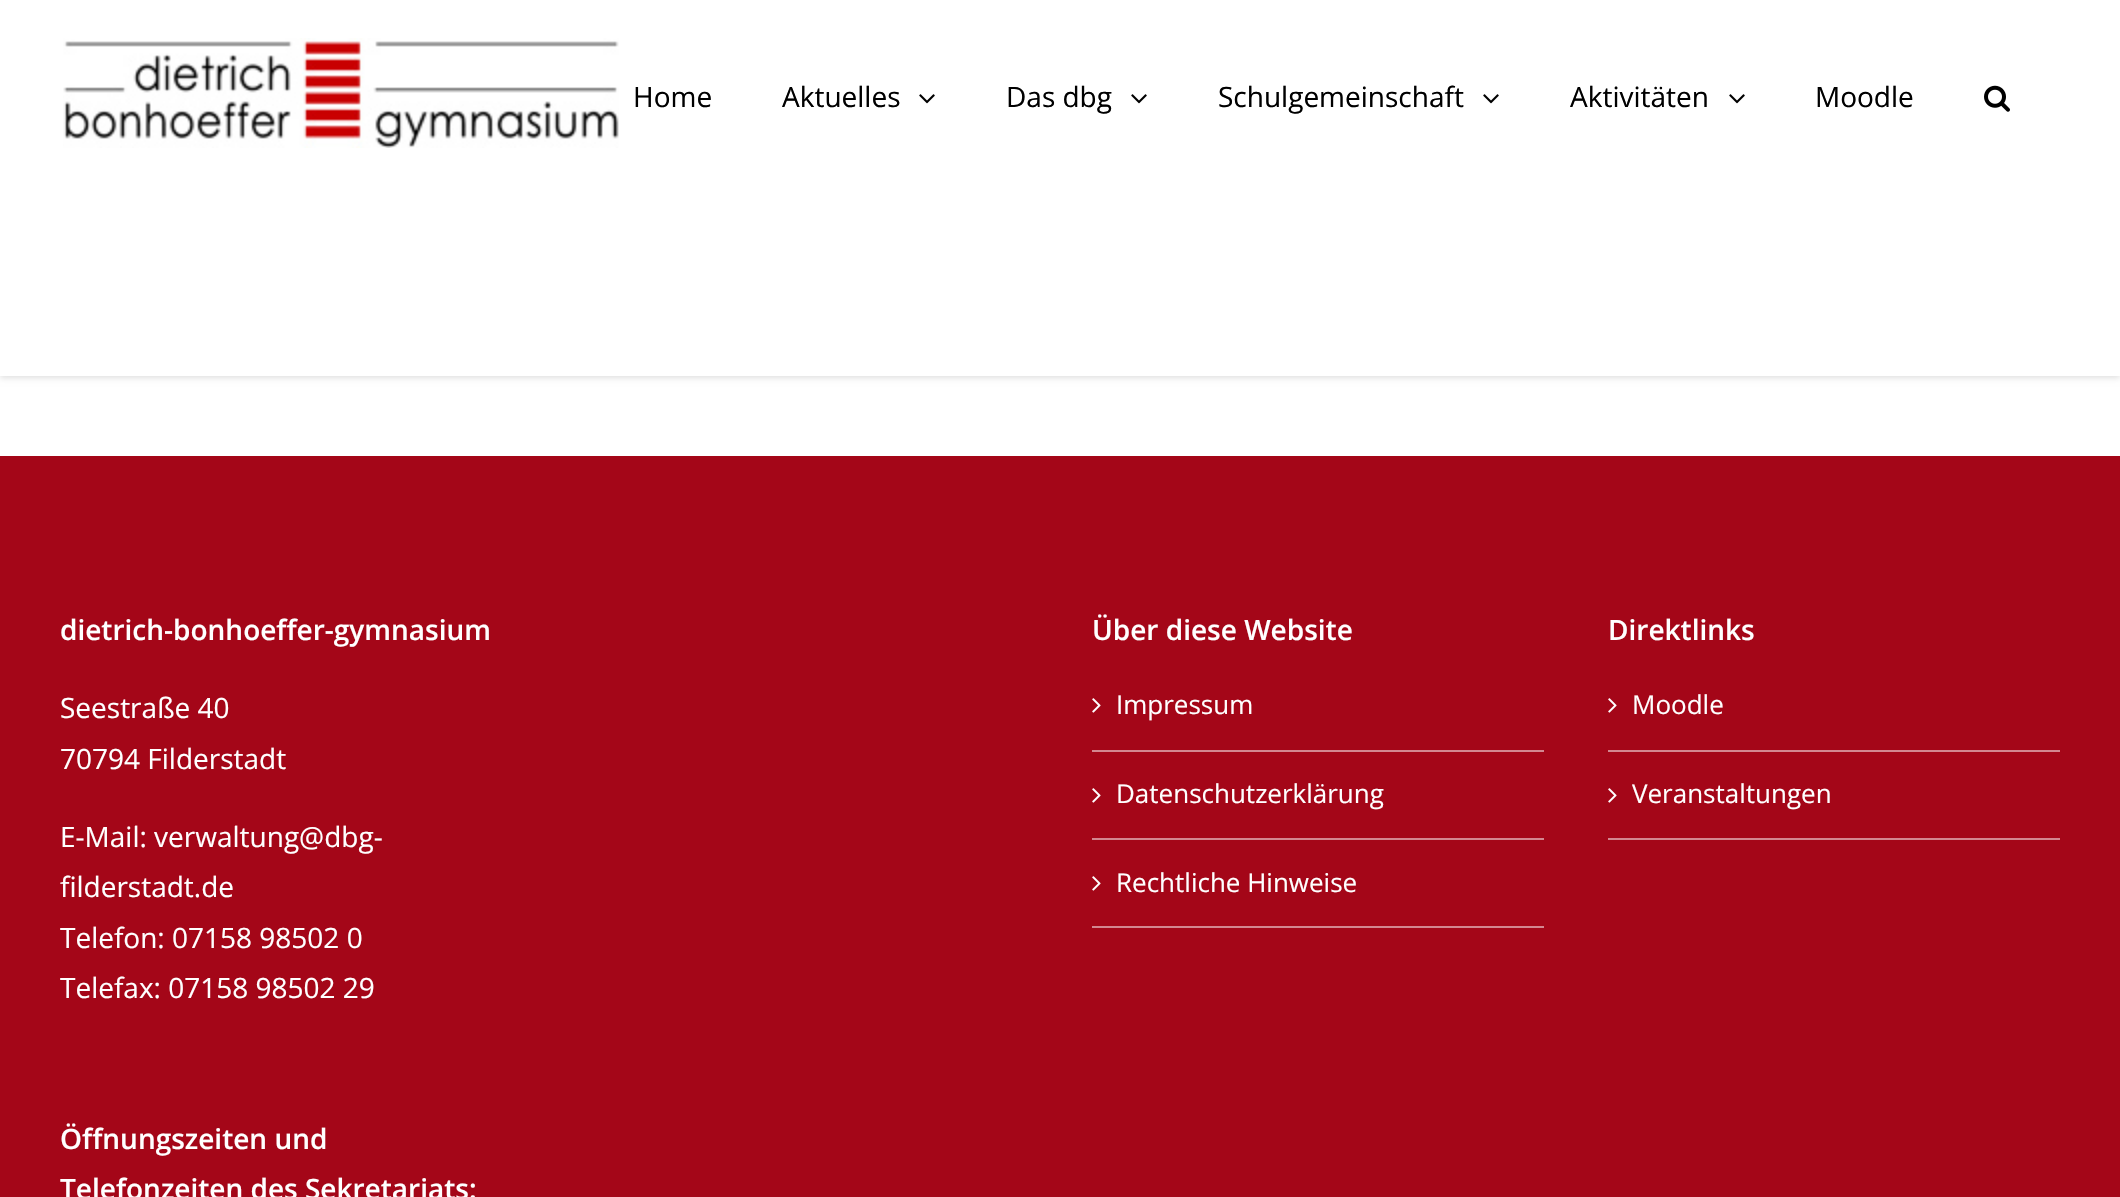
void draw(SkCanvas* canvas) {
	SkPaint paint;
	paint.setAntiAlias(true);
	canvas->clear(0xffffffff);
	paint.setColor(0x1f000000);
	paint.setMaskFilter(SkMaskFilter::MakeBlur(kNormal_SkBlurStyle, 3));
	canvas->drawRect(SkRect::MakeXYWH(0, 2, 2120, 376), paint);
	paint.setMaskFilter(nullptr);
	paint.setColor(0xffffffff);
	canvas->drawRect(SkRect::MakeXYWH(0, 0, 2120, 376), paint);
	canvas->drawImageRect(SkImages::DeferredFromEncodedData(SkData::MakeFromFileName("img1.png")), SkRect::MakeXYWH(63, 38, 556, 110), SkSamplingOptions());
	SkFont f1(fontMgr->matchFamilyStyle("Open Sans", SkFontStyle::Normal()), 28);
	f1.setSubpixel(true);
	paint.setColor(0xff000000);
	canvas->drawString("Home", 633, 107, f1, paint);
	canvas->drawString("Aktuelles", 782, 107, f1, paint);
	canvas->drawImageRect(SkImages::DeferredFromEncodedData(SkData::MakeFromFileName("img2.png")), SkRect::MakeXYWH(919, 94, 16, 10), SkSamplingOptions());
	canvas->drawString("Das dbg", 1006, 107, f1, paint);
	canvas->drawImageRect(SkImages::DeferredFromEncodedData(SkData::MakeFromFileName("img2.png")), SkRect::MakeXYWH(1131, 94, 16, 10), SkSamplingOptions());
	canvas->drawString("Schulgemeinschaft", 1218, 107, f1, paint);
	canvas->drawImageRect(SkImages::DeferredFromEncodedData(SkData::MakeFromFileName("img2.png")), SkRect::MakeXYWH(1483, 94, 16, 10), SkSamplingOptions());
	canvas->drawString("Aktivitäten", 1570, 107, f1, paint);
	canvas->drawImageRect(SkImages::DeferredFromEncodedData(SkData::MakeFromFileName("img2.png")), SkRect::MakeXYWH(1729, 94, 16, 10), SkSamplingOptions());
	canvas->drawString("Moodle", 1815, 107, f1, paint);
	canvas->drawImageRect(SkImages::DeferredFromEncodedData(SkData::MakeFromFileName("img3.png")), SkRect::MakeXYWH(1984, 85, 26, 27), SkSamplingOptions());
	paint.setColor(0xffa40618);
	canvas->drawRect(SkRect::MakeXYWH(0, 456, 2120, 741), paint);
	SkFont f2(fontMgr->matchFamilyStyle("Open Sans", SkFontStyle(600, SkFontStyle::kNormal_Width, SkFontStyle::kUpright_Slant)), 28);
	f2.setSubpixel(true);
	paint.setColor(0xffffffff);
	canvas->drawString("dietrich-bonhoeffer-gymnasium", 60, 640, f2, paint);
	canvas->drawString("Seestraße 40", 60, 718, f1, paint);
	canvas->drawString("70794 Filderstadt", 60, 769, f1, paint);
	canvas->drawString("E-Mail: verwaltung@dbg-", 60, 847, f1, paint);
	canvas->drawString("filderstadt.de", 60, 897, f1, paint);
	canvas->drawString("Telefon: 07158 98502 0", 60, 948, f1, paint);
	canvas->drawString("Telefax: 07158 98502 29", 60, 998, f1, paint);
	canvas->drawString("Öffnungszeiten und", 60, 1149, f2, paint);
	canvas->drawString("Telefonzeiten des Sekretariats:", 60, 1199, f2, paint);
	canvas->drawString("Über diese Website", 1092, 640, f2, paint);
	paint.setColor(0xffd38790);
	canvas->drawRect(SkRect::MakeXYWH(1092, 750, 452, 2), paint);
	canvas->drawImageRect(SkImages::DeferredFromEncodedData(SkData::MakeFromFileName("img4.png")), SkRect::MakeXYWH(1092, 698, 9, 15), SkSamplingOptions());
	SkFont f3(fontMgr->matchFamilyStyle("Open Sans", SkFontStyle::Normal()), 26);
	f3.setSubpixel(true);
	paint.setColor(0xffffffff);
	canvas->drawString("Impressum", 1116, 714, f3, paint);
	paint.setColor(0xffd38790);
	canvas->drawRect(SkRect::MakeXYWH(1092, 838, 452, 2), paint);
	canvas->drawImageRect(SkImages::DeferredFromEncodedData(SkData::MakeFromFileName("img4.png")), SkRect::MakeXYWH(1092, 788, 9, 15), SkSamplingOptions());
	paint.setColor(0xffffffff);
	canvas->drawString("Datenschutzerklärung", 1116, 803, f3, paint);
	paint.setColor(0xffd38790);
	canvas->drawRect(SkRect::MakeXYWH(1092, 926, 452, 2), paint);
	canvas->drawImageRect(SkImages::DeferredFromEncodedData(SkData::MakeFromFileName("img4.png")), SkRect::MakeXYWH(1092, 876, 9, 15), SkSamplingOptions());
	paint.setColor(0xffffffff);
	canvas->drawString("Rechtliche Hinweise", 1116, 892, f3, paint);
	canvas->drawString("Direktlinks", 1608, 640, f2, paint);
	paint.setColor(0xffd38790);
	canvas->drawRect(SkRect::MakeXYWH(1608, 750, 452, 2), paint);
	canvas->drawImageRect(SkImages::DeferredFromEncodedData(SkData::MakeFromFileName("img4.png")), SkRect::MakeXYWH(1608, 698, 9, 15), SkSamplingOptions());
	paint.setColor(0xffffffff);
	canvas->drawString("Moodle", 1632, 714, f3, paint);
	paint.setColor(0xffd38790);
	canvas->drawRect(SkRect::MakeXYWH(1608, 838, 452, 2), paint);
	canvas->drawImageRect(SkImages::DeferredFromEncodedData(SkData::MakeFromFileName("img4.png")), SkRect::MakeXYWH(1608, 788, 9, 15), SkSamplingOptions());
	paint.setColor(0xffffffff);
	canvas->drawString("Veranstaltungen", 1632, 803, f3, paint);
}
